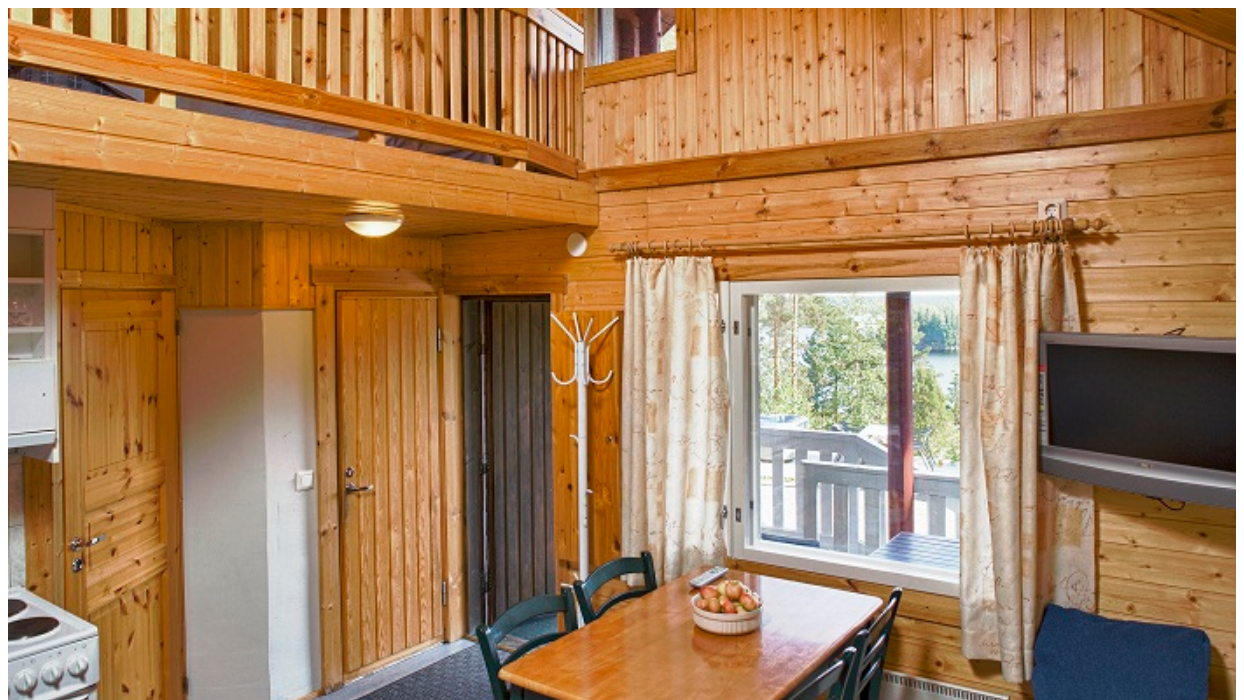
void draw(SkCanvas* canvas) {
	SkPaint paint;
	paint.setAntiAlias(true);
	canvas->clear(0xffffffff);
	canvas->drawImageRect(SkImages::DeferredFromEncodedData(SkData::MakeFromFileName("img1.png")), SkRect::MakeXYWH(8, 8, 1228, 692), SkSamplingOptions());
}
